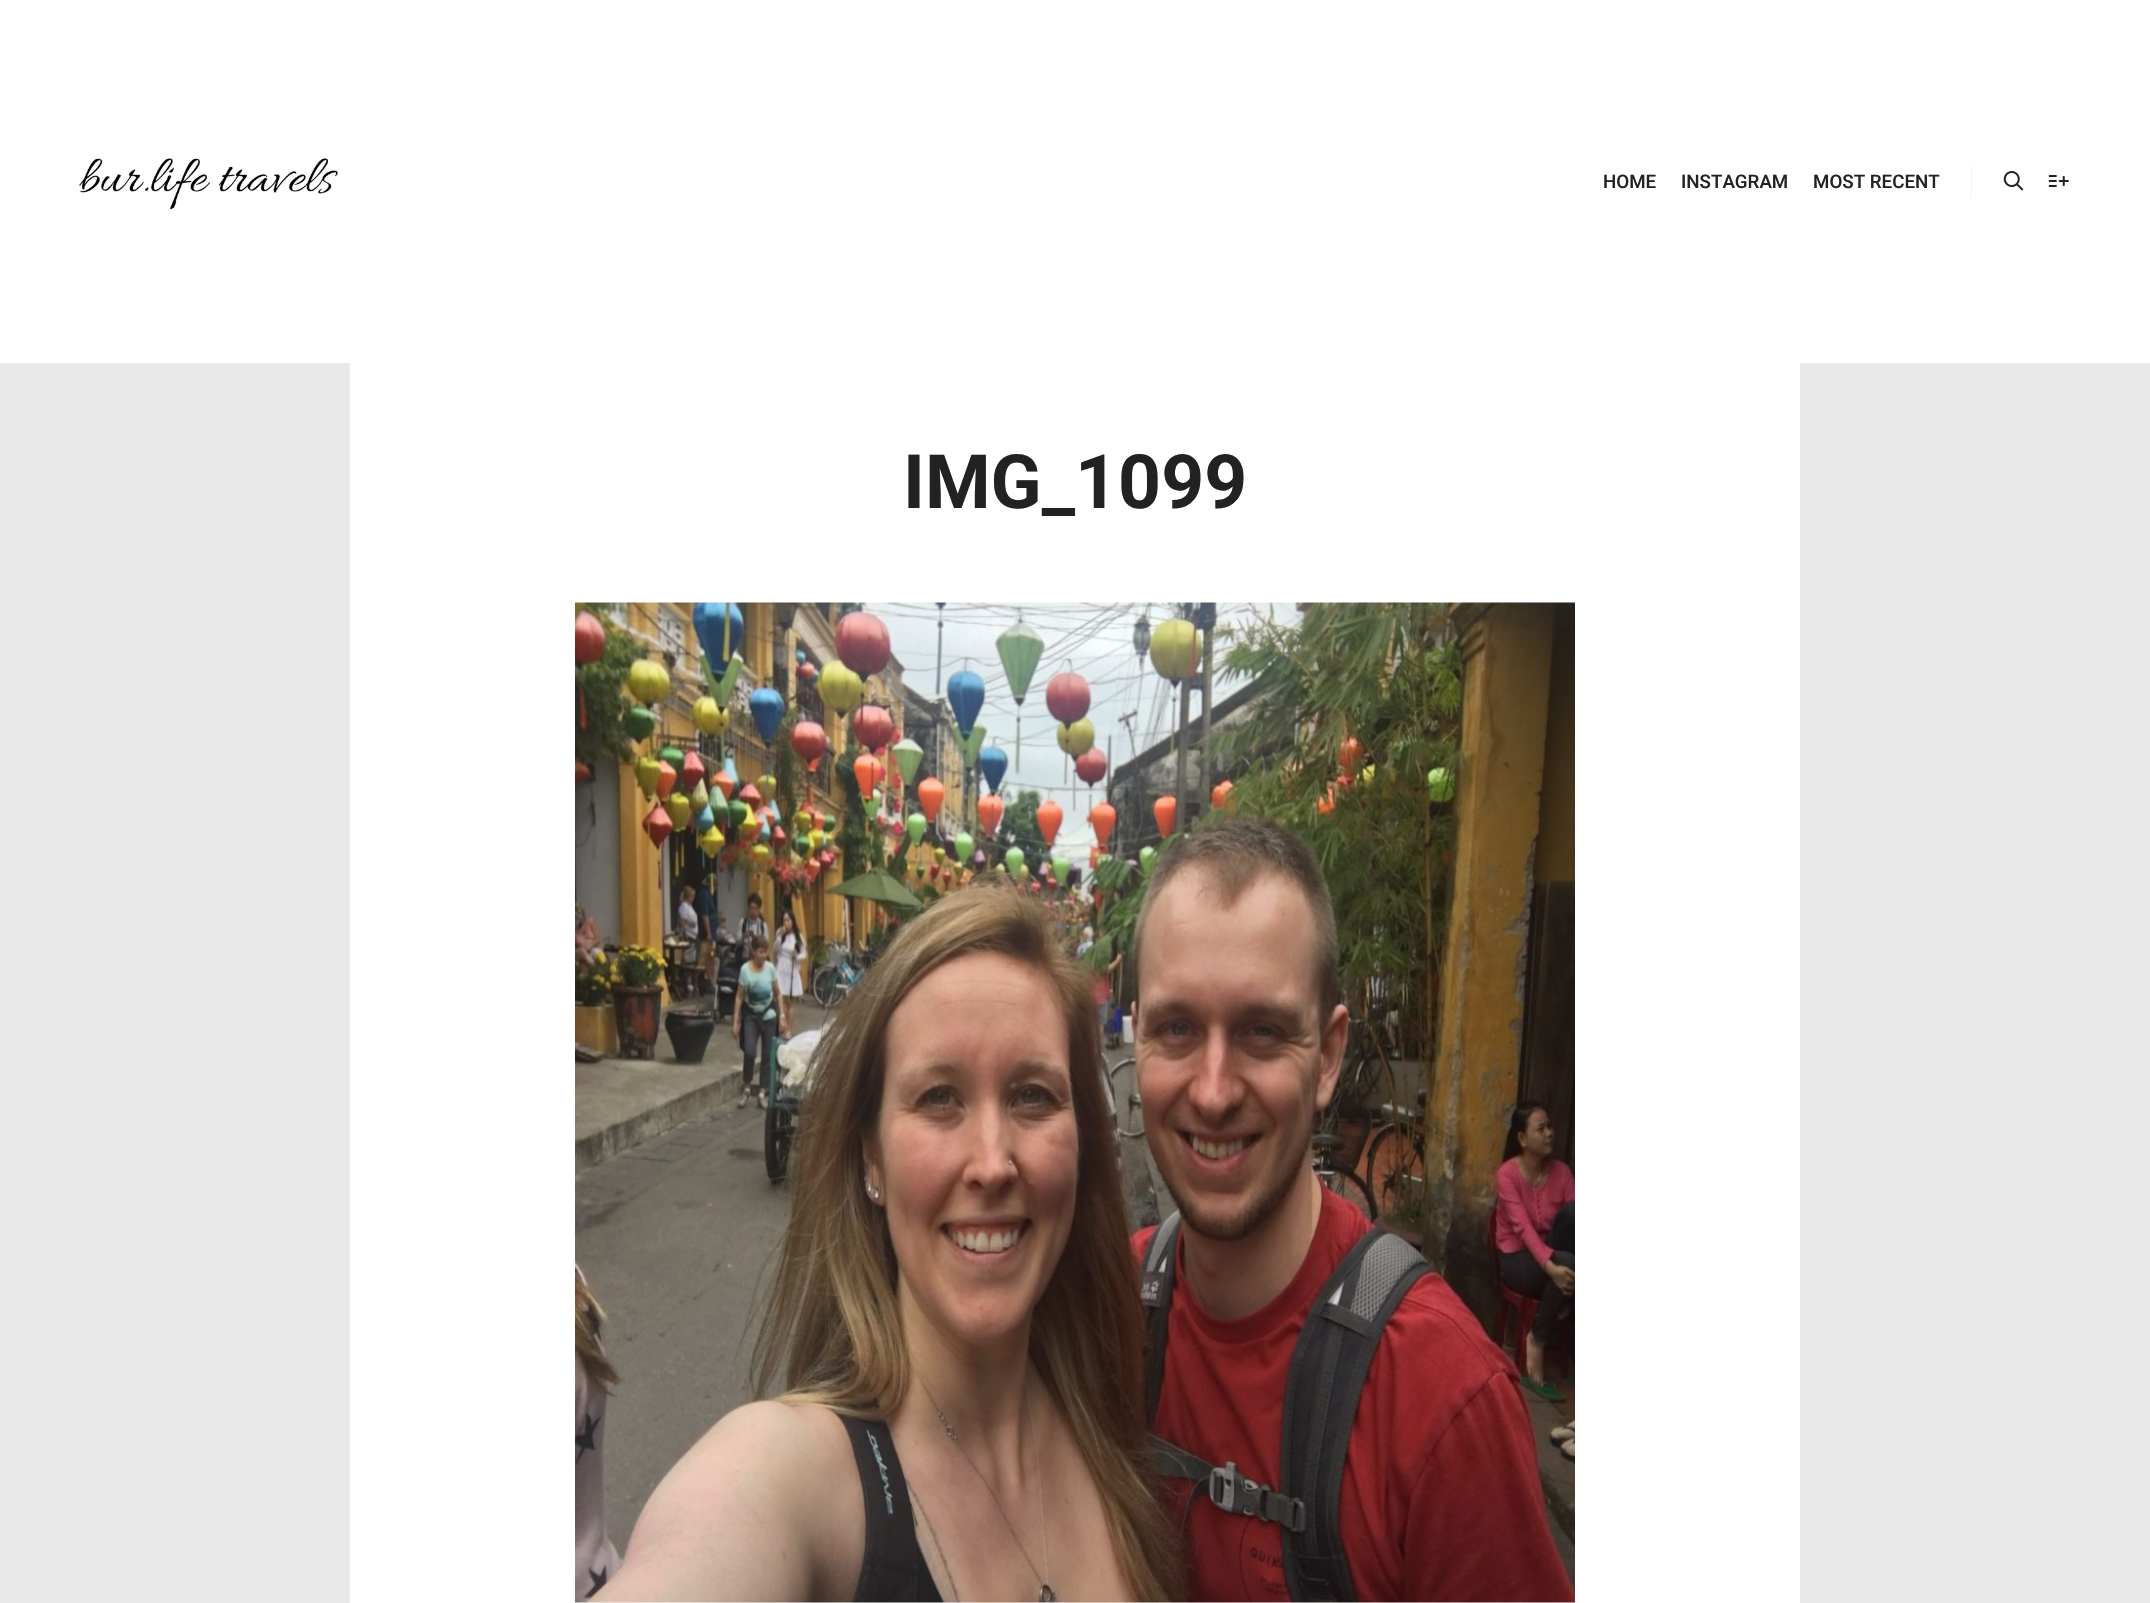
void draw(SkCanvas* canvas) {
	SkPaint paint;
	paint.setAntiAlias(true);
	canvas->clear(0xffe9e9e9);
	paint.setColor(0xffffffff);
	canvas->drawRect(SkRect::MakeXYWH(0, 0, 2150, 363), paint);
	canvas->drawImageRect(SkImages::DeferredFromEncodedData(SkData::MakeFromFileName("img1.png")), SkRect::MakeXYWH(79, 158, 259, 52), SkSamplingOptions());
	SkFont f1(fontMgr->matchFamilyStyle("Roboto", SkFontStyle(500, SkFontStyle::kNormal_Width, SkFontStyle::kUpright_Slant)), 18.75);
	f1.setSubpixel(true);
	paint.setColor(0xff222222);
	canvas->drawString("HOME", 1603, 188, f1, paint);
	canvas->drawString("INSTAGRAM", 1681, 188, f1, paint);
	canvas->drawString("MOST RECENT", 1813, 188, f1, paint);
	paint.setColor(0xfff3f3f3);
	canvas->drawRect(SkRect::MakeXYWH(1971, 166, 1, 32), paint);
	canvas->drawImageRect(SkImages::DeferredFromEncodedData(SkData::MakeFromFileName("img2.png")), SkRect::MakeXYWH(2003, 171, 21, 20), SkSamplingOptions());
	canvas->drawImageRect(SkImages::DeferredFromEncodedData(SkData::MakeFromFileName("img3.png")), SkRect::MakeXYWH(2048, 175, 21, 12), SkSamplingOptions());
	paint.setColor(0xffffffff);
	canvas->drawRect(SkRect::MakeXYWH(350, 363, 1450, 1240), paint);
	SkFont f2(fontMgr->matchFamilyStyle("Roboto", SkFontStyle::Bold()), 75);
	f2.setSubpixel(true);
	paint.setColor(0xff222222);
	canvas->drawString("IMG_1099", 903, 508, f2, paint);
	canvas->drawImageRect(SkImages::DeferredFromEncodedData(SkData::MakeFromFileName("img4.png")), SkRect::MakeXYWH(575, 602, 1000, 1001), SkSamplingOptions());
}
